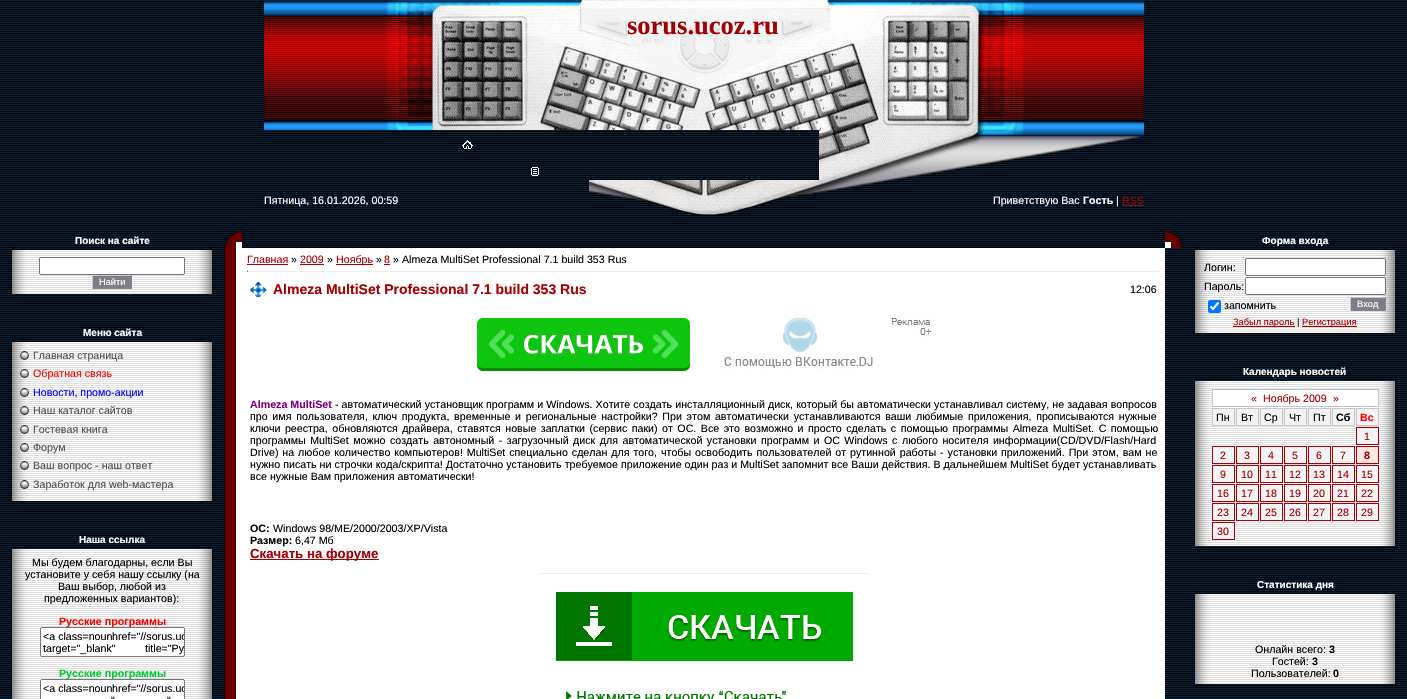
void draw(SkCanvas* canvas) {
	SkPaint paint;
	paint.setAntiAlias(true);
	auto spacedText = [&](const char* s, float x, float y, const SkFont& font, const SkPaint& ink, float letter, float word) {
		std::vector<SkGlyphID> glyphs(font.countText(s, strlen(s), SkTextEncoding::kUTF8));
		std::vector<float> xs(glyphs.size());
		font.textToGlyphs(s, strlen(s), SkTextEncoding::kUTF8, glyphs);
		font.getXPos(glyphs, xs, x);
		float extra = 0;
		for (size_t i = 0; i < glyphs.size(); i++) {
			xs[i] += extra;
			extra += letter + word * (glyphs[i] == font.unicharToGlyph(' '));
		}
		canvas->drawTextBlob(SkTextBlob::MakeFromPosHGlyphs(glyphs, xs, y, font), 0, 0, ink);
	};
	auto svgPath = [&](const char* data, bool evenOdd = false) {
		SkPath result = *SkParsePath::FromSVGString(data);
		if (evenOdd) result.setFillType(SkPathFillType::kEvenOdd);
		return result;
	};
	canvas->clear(0xff03223c);
	canvas->drawImageRect(SkImages::DeferredFromEncodedData(SkData::MakeFromFileName("img1.png")), SkRect::MakeXYWH(0, 1, 1407, 697), SkSamplingOptions());
	canvas->drawImageRect(SkImages::DeferredFromEncodedData(SkData::MakeFromFileName("img2.png")), SkRect::MakeXYWH(264, 0, 325, 130), SkSamplingOptions());
	canvas->drawImageRect(SkImages::DeferredFromEncodedData(SkData::MakeFromFileName("img3.png")), SkRect::MakeXYWH(589, 0, 230, 130), SkSamplingOptions());
	SkFont f1(fontMgr->matchFamilyStyle("Liberation Serif", SkFontStyle::Bold()), 26.5);
	f1.setSubpixel(true);
	paint.setColor(0xffa10003);
	canvas->drawString("sorus.ucoz.ru", 627, 34, f1, paint);
	canvas->drawImageRect(SkImages::DeferredFromEncodedData(SkData::MakeFromFileName("img4.png")), SkRect::MakeXYWH(819, 0, 325, 130), SkSamplingOptions());
	canvas->drawImageRect(SkImages::DeferredFromEncodedData(SkData::MakeFromFileName("img5.png")), SkRect::MakeXYWH(462, 140, 11, 9), SkSamplingOptions());
	canvas->drawImageRect(SkImages::DeferredFromEncodedData(SkData::MakeFromFileName("img6.png")), SkRect::MakeXYWH(531, 167, 8, 9), SkSamplingOptions());
	canvas->drawImageRect(SkImages::DeferredFromEncodedData(SkData::MakeFromFileName("img7.png")), SkRect::MakeXYWH(819, 130, 325, 50), SkSamplingOptions());
	SkFont f2(fontMgr->matchFamilyStyle("Liberation Sans", SkFontStyle::Normal()), 10.67);
	f2.setSubpixel(true);
	paint.setColor(0xffffffff);
	canvas->drawString("Пятница, 16.01.2026, 00:59", 264, 204, f2, paint);
	canvas->drawImageRect(SkImages::DeferredFromEncodedData(SkData::MakeFromFileName("img8.png")), SkRect::MakeXYWH(589, 180, 230, 35), SkSamplingOptions());
	canvas->drawImageRect(SkImages::DeferredFromEncodedData(SkData::MakeFromFileName("img9.png")), SkRect::MakeXYWH(819, 180, 70, 13), SkSamplingOptions());
	canvas->drawString("Приветствую Вас", 993, 204, f2, paint);
	SkFont f3(fontMgr->matchFamilyStyle("Liberation Sans", SkFontStyle::Bold()), 10.67);
	f3.setSubpixel(true);
	canvas->drawString("Гость", 1083, 204, f3, paint);
	canvas->drawString("|", 1116, 204, f2, paint);
	paint.setColor(0xffa70003);
	canvas->drawString("RSS", 1122, 204, f2, paint);
	canvas->drawRect(SkRect::MakeXYWH(1122, 205, 22, 1), paint);
	SkFont f4(fontMgr->matchFamilyStyle("Liberation Sans", SkFontStyle::Bold()), 10);
	f4.setSubpixel(true);
	paint.setColor(0xffffffff);
	canvas->drawString("Поиск на сайте", 75, 244, f4, paint);
	canvas->drawImageRect(SkImages::DeferredFromEncodedData(SkData::MakeFromFileName("img10.png")), SkRect::MakeXYWH(12, 250, 200, 44), SkSamplingOptions());
	canvas->drawRoundRect(SkRect::MakeXYWH(39.5, 257.5, 145, 17), 1.5, 1.5, paint);
	paint.setStroke(true);
	paint.setStrokeWidth(1);
	paint.setColor(0xff767676);
	canvas->drawRoundRect(SkRect::MakeXYWH(39.5, 257.5, 145, 17), 1.5, 1.5, paint);
	paint.setStroke(false);
	paint.setColor(0xff807d8a);
	canvas->drawRect(SkRect::MakeXYWH(93, 276, 38, 12), paint);
	paint.setColor(0xffc8c6cb);
	canvas->drawRect(SkRect::MakeXYWH(92, 275, 40, 1), paint);
	paint.setColor(0xff858487);
	canvas->drawRect(SkRect::MakeXYWH(131, 275, 1, 14), paint);
	canvas->drawRect(SkRect::MakeXYWH(92, 288, 40, 1), paint);
	paint.setColor(0xffc8c6cb);
	canvas->drawRect(SkRect::MakeXYWH(92, 275, 1, 14), paint);
	SkFont f5(fontMgr->matchFamilyStyle("Liberation Sans", SkFontStyle::Normal()), 9.25);
	f5.setSubpixel(true);
	paint.setColor(0xffffffff);
	canvas->drawString("Найти", 99, 285, f5, paint);
	canvas->drawString("Меню сайта", 83, 336, f4, paint);
	canvas->drawImageRect(SkImages::DeferredFromEncodedData(SkData::MakeFromFileName("img11.png")), SkRect::MakeXYWH(12, 342, 200, 159), SkSamplingOptions());
	canvas->drawImageRect(SkImages::DeferredFromEncodedData(SkData::MakeFromFileName("img12.png")), SkRect::MakeXYWH(20, 351, 9, 9), SkSamplingOptions());
	paint.setColor(0xff504e59);
	canvas->drawString("Главная страница", 33, 359, f2, paint);
	canvas->drawImageRect(SkImages::DeferredFromEncodedData(SkData::MakeFromFileName("img12.png")), SkRect::MakeXYWH(20, 369, 9, 9), SkSamplingOptions());
	paint.setColor(0xffff0000);
	canvas->drawString("Обратная связь", 33, 377, f2, paint);
	canvas->drawImageRect(SkImages::DeferredFromEncodedData(SkData::MakeFromFileName("img13.png")), SkRect::MakeXYWH(20, 388, 9, 9), SkSamplingOptions());
	paint.setColor(0xff0000ff);
	canvas->drawString("Новости, промо-акции", 33, 396, f2, paint);
	canvas->drawImageRect(SkImages::DeferredFromEncodedData(SkData::MakeFromFileName("img13.png")), SkRect::MakeXYWH(20, 406, 9, 9), SkSamplingOptions());
	paint.setColor(0xff504e59);
	canvas->drawString("Наш каталог сайтов", 33, 414, f2, paint);
	canvas->drawImageRect(SkImages::DeferredFromEncodedData(SkData::MakeFromFileName("img12.png")), SkRect::MakeXYWH(20, 425, 9, 9), SkSamplingOptions());
	canvas->drawString("Гостевая книга", 33, 433, f2, paint);
	canvas->drawImageRect(SkImages::DeferredFromEncodedData(SkData::MakeFromFileName("img12.png")), SkRect::MakeXYWH(20, 443, 9, 9), SkSamplingOptions());
	canvas->drawString("Форум", 33, 451, f2, paint);
	canvas->drawImageRect(SkImages::DeferredFromEncodedData(SkData::MakeFromFileName("img12.png")), SkRect::MakeXYWH(20, 461, 9, 9), SkSamplingOptions());
	canvas->drawString("Ваш вопрос - наш ответ", 33, 469, f2, paint);
	canvas->drawImageRect(SkImages::DeferredFromEncodedData(SkData::MakeFromFileName("img13.png")), SkRect::MakeXYWH(20, 480, 9, 9), SkSamplingOptions());
	canvas->drawString("Заработок для web-мастера", 33, 488, f2, paint);
	paint.setColor(0xffffffff);
	canvas->drawString("Наша ссылка", 79, 543, f4, paint);
	canvas->drawImageRect(SkImages::DeferredFromEncodedData(SkData::MakeFromFileName("img14.png")), SkRect::MakeXYWH(12, 549, 200, 150), SkSamplingOptions());
	paint.setColor(0xff000000);
	canvas->drawString("Мы будем благодарны, если Вы", 32, 566, f2, paint);
	canvas->drawString("установите у себя нашу ссылку (на", 25, 578, f2, paint);
	canvas->drawString("Ваш выбор, любой из", 58, 590, f2, paint);
	canvas->drawString("предложенных вариантов):", 44, 602, f2, paint);
	paint.setColor(0xffff0000);
	canvas->drawString("Русские программы", 59, 625, f3, paint);
	paint.setColor(0xffffffff);
	canvas->drawRoundRect(SkRect::MakeXYWH(40.5, 627.5, 144, 29), 1.5, 1.5, paint);
	paint.setStroke(true);
	paint.setColor(0xff767676);
	canvas->drawRoundRect(SkRect::MakeXYWH(40.5, 627.5, 144, 29), 1.5, 1.5, paint);
	paint.setStroke(false);
	paint.setColor(0xff000000);
	canvas->drawString("<a class=noun", 43, 640, f2, paint);
	canvas->save();
	canvas->clipRect(SkRect::MakeXYWH(41, 628, 143, 28));
	canvas->drawString("href=\"//sorus.uc", 112, 640, f2, paint);
	canvas->restore();
	canvas->drawString("target=\"_blank\"", 43, 652, f2, paint);
	canvas->drawString("title=\"Ру", 145, 652, f2, paint);
	paint.setColor(0xff00cc33);
	canvas->drawString("Русские программы", 59, 677, f3, paint);
	paint.setColor(0xffffffff);
	canvas->drawRoundRect(SkRect::MakeXYWH(40.5, 679.5, 144, 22), 1.5, 1.5, paint);
	paint.setStroke(true);
	paint.setColor(0xff767676);
	canvas->drawRoundRect(SkRect::MakeXYWH(40.5, 679.5, 144, 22), 1.5, 1.5, paint);
	paint.setStroke(false);
	paint.setColor(0xff000000);
	canvas->drawString("<a class=noun", 43, 692, f2, paint);
	canvas->save();
	canvas->clipRect(SkRect::MakeXYWH(41, 680, 143, 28));
	canvas->drawString("href=\"//sorus.uc", 112, 692, f2, paint);
	canvas->restore();
	canvas->drawString("\"", 111, 704, f2, paint);
	canvas->drawString("\"", 167, 704, f2, paint);
	canvas->drawImageRect(SkImages::DeferredFromEncodedData(SkData::MakeFromFileName("img15.png")), SkRect::MakeXYWH(224, 230, 18, 18), SkSamplingOptions());
	canvas->drawImageRect(SkImages::DeferredFromEncodedData(SkData::MakeFromFileName("img16.png")), SkRect::MakeXYWH(1165, 230, 18, 18), SkSamplingOptions());
	canvas->drawImageRect(SkImages::DeferredFromEncodedData(SkData::MakeFromFileName("img17.png")), SkRect::MakeXYWH(224, 248, 18, 451), SkSamplingOptions());
	paint.setColor(0xffffffff);
	canvas->drawRect(SkRect::MakeXYWH(242, 248, 923, 451), paint);
	paint.setColor(0xffa70003);
	canvas->drawString("Главная", 247, 263, f2, paint);
	canvas->drawRect(SkRect::MakeXYWH(247, 264, 41, 1), paint);
	paint.setColor(0xff000000);
	canvas->drawString("»", 291, 263, f2, paint);
	paint.setColor(0xffa70003);
	canvas->drawString("2009", 300, 263, f2, paint);
	canvas->drawRect(SkRect::MakeXYWH(300, 264, 24, 1), paint);
	paint.setColor(0xff000000);
	canvas->drawString("»", 327, 263, f2, paint);
	paint.setColor(0xffa70003);
	canvas->drawRect(SkRect::MakeXYWH(336, 264, 37, 1), paint);
	canvas->drawString("Ноябрь", 336, 263, f2, paint);
	paint.setColor(0xff000000);
	canvas->drawString("»", 376, 263, f2, paint);
	paint.setColor(0xffa70003);
	canvas->drawString("8", 384, 263, f2, paint);
	canvas->drawRect(SkRect::MakeXYWH(384, 264, 6, 1), paint);
	paint.setColor(0xff000000);
	canvas->drawString("» Almeza MultiSet Professional 7.1 build 353 Rus", 393, 263, f2, paint);
	paint.setColor(0xffeeeeee);
	canvas->drawRect(SkRect::MakeXYWH(1159, 270, 1, 2), paint);
	canvas->drawRect(SkRect::MakeXYWH(247, 271, 913, 1), paint);
	paint.setColor(0xff9f9f9f);
	canvas->drawRect(SkRect::MakeXYWH(247, 270, 1, 2), paint);
	canvas->drawImageRect(SkImages::DeferredFromEncodedData(SkData::MakeFromFileName("img18.png")), SkRect::MakeXYWH(250, 281, 17, 16), SkSamplingOptions());
	SkFont f6(fontMgr->matchFamilyStyle("Liberation Sans", SkFontStyle::Bold()), 14);
	f6.setSubpixel(true);
	paint.setColor(0xffa70003);
	canvas->drawString("Almeza MultiSet Professional 7.1 build 353 Rus", 273, 294, f6, paint);
	paint.setColor(0xff000000);
	canvas->drawString("12:06", 1130, 293, f2, paint);
	canvas->drawImageRect(SkImages::DeferredFromEncodedData(SkData::MakeFromFileName("img19.png")), SkRect::MakeXYWH(471, 314, 463, 60), SkSamplingOptions());
	paint.setColor(0xff800080);
	canvas->drawString("Almeza MultiSet", 250, 408, f3, paint);
	paint.setColor(0xff000000);
	spacedText("- автоматический установщик программ и Windows. Хотите создать инсталляционный диск, который бы автоматически устанавливал систему, не задавая вопросов", 335, 408, f2, paint, 0, 0.1);
	spacedText("про имя пользователя, ключ продукта, временные и региональные настройки? При этом автоматически устанавливаются ваши любимые приложения, прописываются нужные", 250, 420, f2, paint, 0, 1.75);
	spacedText("ключи реестра, обновляются драйвера, ставятся новые заплатки (сервис паки) от ОС. Все это возможно и просто сделать с помощью программы Almeza MultiSet. С помощью", 250, 432, f2, paint, 0, 1.5);
	spacedText("программы MultiSet можно создать автономный - загрузочный диск для автоматической установки программ и ОС Windows с любого носителя информации(CD/DVD/Flash/Hard", 250, 444, f2, paint, 0, 1.5);
	spacedText("Drive) на любое количество компьютеров! MultiSet специально сделан для того, чтобы освободить пользователей от рутинной работы - установки приложений. При этом, вам не", 250, 456, f2, paint, 0, 0.95);
	canvas->drawString("нужно писать ни строчки кода/скрипта! Достаточно установить требуемое приложение один раз и MultiSet запомнит все Ваши действия. В дальнейшем MultiSet будет устанавливать", 250, 468, f2, paint);
	canvas->drawString("все нужные Вам приложения автоматически!", 250, 480, f2, paint);
	canvas->drawString("ОС:", 250, 532, f3, paint);
	canvas->drawString("Windows 98/ME/2000/2003/XP/Vista", 273, 532, f2, paint);
	canvas->drawString("Размер:", 250, 544, f3, paint);
	canvas->drawString("6,47 Мб", 295, 544, f2, paint);
	paint.setColor(0xffa70003);
	canvas->drawRect(SkRect::MakeXYWH(250, 559, 129, 1), paint);
	SkFont f7(fontMgr->matchFamilyStyle("Liberation Sans", SkFontStyle::Bold()), 13.25);
	f7.setSubpixel(true);
	canvas->drawString("Скачать на форуме", 250, 558, f7, paint);
	canvas->drawImageRect(SkImages::DeferredFromEncodedData(SkData::MakeFromFileName("img20.png")), SkRect::MakeXYWH(538, 573, 332, 126), SkSamplingOptions());
	paint.setColor(0xffffffff);
	canvas->drawString("Форма входа", 1262, 244, f4, paint);
	canvas->drawImageRect(SkImages::DeferredFromEncodedData(SkData::MakeFromFileName("img21.png")), SkRect::MakeXYWH(1195, 250, 200, 83), SkSamplingOptions());
	paint.setColor(0xff000000);
	canvas->drawString("Логин:", 1204, 271, f2, paint);
	paint.setColor(0xffffffff);
	canvas->drawRoundRect(SkRect::MakeXYWH(1245.5, 258.5, 140, 17), 1.5, 1.5, paint);
	paint.setStroke(true);
	paint.setColor(0xff767676);
	canvas->drawRoundRect(SkRect::MakeXYWH(1245.5, 258.5, 140, 17), 1.5, 1.5, paint);
	paint.setStroke(false);
	paint.setColor(0xff000000);
	canvas->drawString("Пароль:", 1204, 290, f2, paint);
	paint.setColor(0xffffffff);
	canvas->drawRoundRect(SkRect::MakeXYWH(1245.5, 277.5, 140, 17), 1.5, 1.5, paint);
	paint.setStroke(true);
	paint.setColor(0xff767676);
	canvas->drawRoundRect(SkRect::MakeXYWH(1245.5, 277.5, 140, 17), 1.5, 1.5, paint);
	paint.setStroke(false);
	paint.setColor(0xff0075ff);
	canvas->drawRoundRect(SkRect::MakeXYWH(1208, 300, 13, 13), 2, 2, paint);
	paint.setStroke(true);
	paint.setStrokeWidth(2.1);
	paint.setColor(0xffffffff);
	canvas->drawPath(svgPath("M1210.5 306.5L1213 309L1218.5 302.5"), paint);
	paint.setStroke(false);
	paint.setColor(0xff000000);
	canvas->drawString("запомнить", 1224, 309, f2, paint);
	paint.setColor(0xff807d8a);
	canvas->drawRect(SkRect::MakeXYWH(1351, 298, 34, 12), paint);
	paint.setColor(0xffc8c6cb);
	canvas->drawRect(SkRect::MakeXYWH(1350, 297, 36, 1), paint);
	paint.setColor(0xff858487);
	canvas->drawRect(SkRect::MakeXYWH(1385, 297, 1, 14), paint);
	canvas->drawRect(SkRect::MakeXYWH(1350, 310, 36, 1), paint);
	paint.setColor(0xffc8c6cb);
	canvas->drawRect(SkRect::MakeXYWH(1350, 297, 1, 14), paint);
	paint.setColor(0xffffffff);
	canvas->drawString("Вход", 1357, 307, f5, paint);
	paint.setColor(0xffa70003);
	canvas->drawRect(SkRect::MakeXYWH(1233, 326, 62, 1), paint);
	canvas->drawString("Забыл пароль", 1233, 325, f5, paint);
	paint.setColor(0xff000000);
	canvas->drawString("|", 1297, 325, f5, paint);
	paint.setColor(0xffa70003);
	canvas->drawRect(SkRect::MakeXYWH(1302, 326, 55, 1), paint);
	canvas->drawString("Регистрация", 1302, 325, f5, paint);
	paint.setColor(0xffffffff);
	canvas->drawString("Календарь новостей", 1243, 375, f4, paint);
	canvas->drawImageRect(SkImages::DeferredFromEncodedData(SkData::MakeFromFileName("img22.png")), SkRect::MakeXYWH(1195, 381, 200, 165), SkSamplingOptions());
	canvas->drawRect(SkRect::MakeXYWH(1213, 390, 165, 15), paint);
	paint.setStroke(true);
	paint.setStrokeWidth(1);
	paint.setColor(0xffc8c6cb);
	canvas->drawRect(SkRect::MakeXYWH(1212.5, 389.5, 166, 17), paint);
	paint.setStroke(false);
	paint.setColor(0xffa70003);
	canvas->drawString("«", 1251, 402, f2, paint);
	canvas->drawString("Ноябрь 2009", 1263, 402, f2, paint);
	canvas->drawString("»", 1333, 402, f2, paint);
	paint.setColor(0xfff3f2f4);
	canvas->drawRect(SkRect::MakeXYWH(1212.5, 408.5, 22, 17), paint);
	paint.setStroke(true);
	paint.setColor(0xffc8c6cb);
	canvas->drawRect(SkRect::MakeXYWH(1212.5, 408.5, 22, 17), paint);
	paint.setStroke(false);
	paint.setColor(0xff000000);
	canvas->drawString("Пн", 1216, 421, f2, paint);
	paint.setColor(0xfff3f2f4);
	canvas->drawRect(SkRect::MakeXYWH(1236.5, 408.5, 22, 17), paint);
	paint.setStroke(true);
	paint.setColor(0xffc8c6cb);
	canvas->drawRect(SkRect::MakeXYWH(1236.5, 408.5, 22, 17), paint);
	paint.setStroke(false);
	paint.setColor(0xff000000);
	canvas->drawString("Вт", 1241, 421, f2, paint);
	paint.setColor(0xfff3f2f4);
	canvas->drawRect(SkRect::MakeXYWH(1260.5, 408.5, 22, 17), paint);
	paint.setStroke(true);
	paint.setColor(0xffc8c6cb);
	canvas->drawRect(SkRect::MakeXYWH(1260.5, 408.5, 22, 17), paint);
	paint.setStroke(false);
	paint.setColor(0xff000000);
	canvas->drawString("Ср", 1264, 421, f2, paint);
	paint.setColor(0xfff3f2f4);
	canvas->drawRect(SkRect::MakeXYWH(1284.5, 408.5, 22, 17), paint);
	paint.setStroke(true);
	paint.setColor(0xffc8c6cb);
	canvas->drawRect(SkRect::MakeXYWH(1284.5, 408.5, 22, 17), paint);
	paint.setStroke(false);
	paint.setColor(0xff000000);
	canvas->drawString("Чт", 1289, 421, f2, paint);
	paint.setColor(0xfff3f2f4);
	canvas->drawRect(SkRect::MakeXYWH(1308.5, 408.5, 22, 17), paint);
	paint.setStroke(true);
	paint.setColor(0xffc8c6cb);
	canvas->drawRect(SkRect::MakeXYWH(1308.5, 408.5, 22, 17), paint);
	paint.setStroke(false);
	paint.setColor(0xff000000);
	canvas->drawString("Пт", 1313, 421, f2, paint);
	paint.setColor(0xfff3f2f4);
	canvas->drawRect(SkRect::MakeXYWH(1332.5, 408.5, 22, 17), paint);
	paint.setStroke(true);
	paint.setColor(0xffc8c6cb);
	canvas->drawRect(SkRect::MakeXYWH(1332.5, 408.5, 22, 17), paint);
	paint.setStroke(false);
	paint.setColor(0xff000000);
	canvas->drawString("Сб", 1336, 421, f3, paint);
	paint.setColor(0xfff3f2f4);
	canvas->drawRect(SkRect::MakeXYWH(1356.5, 408.5, 22, 17), paint);
	paint.setStroke(true);
	paint.setColor(0xffc8c6cb);
	canvas->drawRect(SkRect::MakeXYWH(1356.5, 408.5, 22, 17), paint);
	paint.setStroke(false);
	paint.setColor(0xffff0000);
	canvas->drawString("Вс", 1360, 421, f3, paint);
	paint.setColor(0xfff3f2f4);
	canvas->drawRect(SkRect::MakeXYWH(1356.5, 427.5, 22, 17), paint);
	paint.setStroke(true);
	paint.setColor(0xffa70003);
	canvas->drawRect(SkRect::MakeXYWH(1356.5, 427.5, 22, 17), paint);
	paint.setStroke(false);
	canvas->drawString("1", 1364, 440, f2, paint);
	paint.setColor(0xfff3f2f4);
	canvas->drawRect(SkRect::MakeXYWH(1212.5, 446.5, 22, 17), paint);
	paint.setStroke(true);
	paint.setColor(0xffa70003);
	canvas->drawRect(SkRect::MakeXYWH(1212.5, 446.5, 22, 17), paint);
	paint.setStroke(false);
	canvas->drawString("2", 1220, 459, f2, paint);
	paint.setColor(0xfff3f2f4);
	canvas->drawRect(SkRect::MakeXYWH(1236.5, 446.5, 22, 17), paint);
	paint.setStroke(true);
	paint.setColor(0xffa70003);
	canvas->drawRect(SkRect::MakeXYWH(1236.5, 446.5, 22, 17), paint);
	paint.setStroke(false);
	canvas->drawString("3", 1244, 459, f2, paint);
	paint.setColor(0xfff3f2f4);
	canvas->drawRect(SkRect::MakeXYWH(1260.5, 446.5, 22, 17), paint);
	paint.setStroke(true);
	paint.setColor(0xffa70003);
	canvas->drawRect(SkRect::MakeXYWH(1260.5, 446.5, 22, 17), paint);
	paint.setStroke(false);
	canvas->drawString("4", 1268, 459, f2, paint);
	paint.setColor(0xfff3f2f4);
	canvas->drawRect(SkRect::MakeXYWH(1284.5, 446.5, 22, 17), paint);
	paint.setStroke(true);
	paint.setColor(0xffa70003);
	canvas->drawRect(SkRect::MakeXYWH(1284.5, 446.5, 22, 17), paint);
	paint.setStroke(false);
	canvas->drawString("5", 1292, 459, f2, paint);
	paint.setColor(0xfff3f2f4);
	canvas->drawRect(SkRect::MakeXYWH(1308.5, 446.5, 22, 17), paint);
	paint.setStroke(true);
	paint.setColor(0xffa70003);
	canvas->drawRect(SkRect::MakeXYWH(1308.5, 446.5, 22, 17), paint);
	paint.setStroke(false);
	canvas->drawString("6", 1316, 459, f2, paint);
	paint.setColor(0xfff3f2f4);
	canvas->drawRect(SkRect::MakeXYWH(1332.5, 446.5, 22, 17), paint);
	paint.setStroke(true);
	paint.setColor(0xffa70003);
	canvas->drawRect(SkRect::MakeXYWH(1332.5, 446.5, 22, 17), paint);
	paint.setStroke(false);
	canvas->drawString("7", 1340, 459, f2, paint);
	paint.setColor(0xfff8e6df);
	canvas->drawRect(SkRect::MakeXYWH(1356.5, 446.5, 22, 17), paint);
	paint.setStroke(true);
	paint.setColor(0xffa70003);
	canvas->drawRect(SkRect::MakeXYWH(1356.5, 446.5, 22, 17), paint);
	paint.setStroke(false);
	canvas->drawString("8", 1364, 459, f3, paint);
	paint.setColor(0xfff3f2f4);
	canvas->drawRect(SkRect::MakeXYWH(1212.5, 465.5, 22, 17), paint);
	paint.setStroke(true);
	paint.setColor(0xffa70003);
	canvas->drawRect(SkRect::MakeXYWH(1212.5, 465.5, 22, 17), paint);
	paint.setStroke(false);
	canvas->drawString("9", 1220, 478, f2, paint);
	paint.setColor(0xfff3f2f4);
	canvas->drawRect(SkRect::MakeXYWH(1236.5, 465.5, 22, 17), paint);
	paint.setStroke(true);
	paint.setColor(0xffa70003);
	canvas->drawRect(SkRect::MakeXYWH(1236.5, 465.5, 22, 17), paint);
	paint.setStroke(false);
	canvas->drawString("10", 1241, 478, f2, paint);
	paint.setColor(0xfff3f2f4);
	canvas->drawRect(SkRect::MakeXYWH(1260.5, 465.5, 22, 17), paint);
	paint.setStroke(true);
	paint.setColor(0xffa70003);
	canvas->drawRect(SkRect::MakeXYWH(1260.5, 465.5, 22, 17), paint);
	paint.setStroke(false);
	canvas->drawString("11", 1265, 478, f2, paint);
	paint.setColor(0xfff3f2f4);
	canvas->drawRect(SkRect::MakeXYWH(1284.5, 465.5, 22, 17), paint);
	paint.setStroke(true);
	paint.setColor(0xffa70003);
	canvas->drawRect(SkRect::MakeXYWH(1284.5, 465.5, 22, 17), paint);
	paint.setStroke(false);
	canvas->drawString("12", 1289, 478, f2, paint);
	paint.setColor(0xfff3f2f4);
	canvas->drawRect(SkRect::MakeXYWH(1308.5, 465.5, 22, 17), paint);
	paint.setStroke(true);
	paint.setColor(0xffa70003);
	canvas->drawRect(SkRect::MakeXYWH(1308.5, 465.5, 22, 17), paint);
	paint.setStroke(false);
	canvas->drawString("13", 1313, 478, f2, paint);
	paint.setColor(0xfff3f2f4);
	canvas->drawRect(SkRect::MakeXYWH(1332.5, 465.5, 22, 17), paint);
	paint.setStroke(true);
	paint.setColor(0xffa70003);
	canvas->drawRect(SkRect::MakeXYWH(1332.5, 465.5, 22, 17), paint);
	paint.setStroke(false);
	canvas->drawString("14", 1337, 478, f2, paint);
	paint.setColor(0xfff3f2f4);
	canvas->drawRect(SkRect::MakeXYWH(1356.5, 465.5, 22, 17), paint);
	paint.setStroke(true);
	paint.setColor(0xffa70003);
	canvas->drawRect(SkRect::MakeXYWH(1356.5, 465.5, 22, 17), paint);
	paint.setStroke(false);
	canvas->drawString("15", 1361, 478, f2, paint);
	paint.setColor(0xfff3f2f4);
	canvas->drawRect(SkRect::MakeXYWH(1212.5, 484.5, 22, 17), paint);
	paint.setStroke(true);
	paint.setColor(0xffa70003);
	canvas->drawRect(SkRect::MakeXYWH(1212.5, 484.5, 22, 17), paint);
	paint.setStroke(false);
	canvas->drawString("16", 1217, 497, f2, paint);
	paint.setColor(0xfff3f2f4);
	canvas->drawRect(SkRect::MakeXYWH(1236.5, 484.5, 22, 17), paint);
	paint.setStroke(true);
	paint.setColor(0xffa70003);
	canvas->drawRect(SkRect::MakeXYWH(1236.5, 484.5, 22, 17), paint);
	paint.setStroke(false);
	canvas->drawString("17", 1241, 497, f2, paint);
	paint.setColor(0xfff3f2f4);
	canvas->drawRect(SkRect::MakeXYWH(1260.5, 484.5, 22, 17), paint);
	paint.setStroke(true);
	paint.setColor(0xffa70003);
	canvas->drawRect(SkRect::MakeXYWH(1260.5, 484.5, 22, 17), paint);
	paint.setStroke(false);
	canvas->drawString("18", 1265, 497, f2, paint);
	paint.setColor(0xfff3f2f4);
	canvas->drawRect(SkRect::MakeXYWH(1284.5, 484.5, 22, 17), paint);
	paint.setStroke(true);
	paint.setColor(0xffa70003);
	canvas->drawRect(SkRect::MakeXYWH(1284.5, 484.5, 22, 17), paint);
	paint.setStroke(false);
	canvas->drawString("19", 1289, 497, f2, paint);
	paint.setColor(0xfff3f2f4);
	canvas->drawRect(SkRect::MakeXYWH(1308.5, 484.5, 22, 17), paint);
	paint.setStroke(true);
	paint.setColor(0xffa70003);
	canvas->drawRect(SkRect::MakeXYWH(1308.5, 484.5, 22, 17), paint);
	paint.setStroke(false);
	canvas->drawString("20", 1313, 497, f2, paint);
	paint.setColor(0xfff3f2f4);
	canvas->drawRect(SkRect::MakeXYWH(1332.5, 484.5, 22, 17), paint);
	paint.setStroke(true);
	paint.setColor(0xffa70003);
	canvas->drawRect(SkRect::MakeXYWH(1332.5, 484.5, 22, 17), paint);
	paint.setStroke(false);
	canvas->drawString("21", 1337, 497, f2, paint);
	paint.setColor(0xfff3f2f4);
	canvas->drawRect(SkRect::MakeXYWH(1356.5, 484.5, 22, 17), paint);
	paint.setStroke(true);
	paint.setColor(0xffa70003);
	canvas->drawRect(SkRect::MakeXYWH(1356.5, 484.5, 22, 17), paint);
	paint.setStroke(false);
	canvas->drawString("22", 1361, 497, f2, paint);
	paint.setColor(0xfff3f2f4);
	canvas->drawRect(SkRect::MakeXYWH(1212.5, 503.5, 22, 17), paint);
	paint.setStroke(true);
	paint.setColor(0xffa70003);
	canvas->drawRect(SkRect::MakeXYWH(1212.5, 503.5, 22, 17), paint);
	paint.setStroke(false);
	canvas->drawString("23", 1217, 516, f2, paint);
	paint.setColor(0xfff3f2f4);
	canvas->drawRect(SkRect::MakeXYWH(1236.5, 503.5, 22, 17), paint);
	paint.setStroke(true);
	paint.setColor(0xffa70003);
	canvas->drawRect(SkRect::MakeXYWH(1236.5, 503.5, 22, 17), paint);
	paint.setStroke(false);
	canvas->drawString("24", 1241, 516, f2, paint);
	paint.setColor(0xfff3f2f4);
	canvas->drawRect(SkRect::MakeXYWH(1260.5, 503.5, 22, 17), paint);
	paint.setStroke(true);
	paint.setColor(0xffa70003);
	canvas->drawRect(SkRect::MakeXYWH(1260.5, 503.5, 22, 17), paint);
	paint.setStroke(false);
	canvas->drawString("25", 1265, 516, f2, paint);
	paint.setColor(0xfff3f2f4);
	canvas->drawRect(SkRect::MakeXYWH(1284.5, 503.5, 22, 17), paint);
	paint.setStroke(true);
	paint.setColor(0xffa70003);
	canvas->drawRect(SkRect::MakeXYWH(1284.5, 503.5, 22, 17), paint);
	paint.setStroke(false);
	canvas->drawString("26", 1289, 516, f2, paint);
	paint.setColor(0xfff3f2f4);
	canvas->drawRect(SkRect::MakeXYWH(1308.5, 503.5, 22, 17), paint);
	paint.setStroke(true);
	paint.setColor(0xffa70003);
	canvas->drawRect(SkRect::MakeXYWH(1308.5, 503.5, 22, 17), paint);
	paint.setStroke(false);
	canvas->drawString("27", 1313, 516, f2, paint);
	paint.setColor(0xfff3f2f4);
	canvas->drawRect(SkRect::MakeXYWH(1332.5, 503.5, 22, 17), paint);
	paint.setStroke(true);
	paint.setColor(0xffa70003);
	canvas->drawRect(SkRect::MakeXYWH(1332.5, 503.5, 22, 17), paint);
	paint.setStroke(false);
	canvas->drawString("28", 1337, 516, f2, paint);
	paint.setColor(0xfff3f2f4);
	canvas->drawRect(SkRect::MakeXYWH(1356.5, 503.5, 22, 17), paint);
	paint.setStroke(true);
	paint.setColor(0xffa70003);
	canvas->drawRect(SkRect::MakeXYWH(1356.5, 503.5, 22, 17), paint);
	paint.setStroke(false);
	canvas->drawString("29", 1361, 516, f2, paint);
	paint.setColor(0xfff3f2f4);
	canvas->drawRect(SkRect::MakeXYWH(1212.5, 522.5, 22, 17), paint);
	paint.setStroke(true);
	paint.setColor(0xffa70003);
	canvas->drawRect(SkRect::MakeXYWH(1212.5, 522.5, 22, 17), paint);
	paint.setStroke(false);
	canvas->drawString("30", 1217, 535, f2, paint);
	paint.setColor(0xffffffff);
	canvas->drawString("Статистика дня", 1257, 588, f4, paint);
	canvas->drawImageRect(SkImages::DeferredFromEncodedData(SkData::MakeFromFileName("img23.png")), SkRect::MakeXYWH(1195, 594, 200, 90), SkSamplingOptions());
	paint.setColor(0xff000000);
	canvas->drawString("Онлайн всего:", 1255, 653, f2, paint);
	canvas->drawString("3", 1329, 653, f3, paint);
	canvas->drawString("Гостей:", 1272, 665, f2, paint);
	canvas->drawString("3", 1312, 665, f3, paint);
	canvas->drawString("Пользователей:", 1251, 677, f2, paint);
	canvas->drawString("0", 1333, 677, f3, paint);
}
